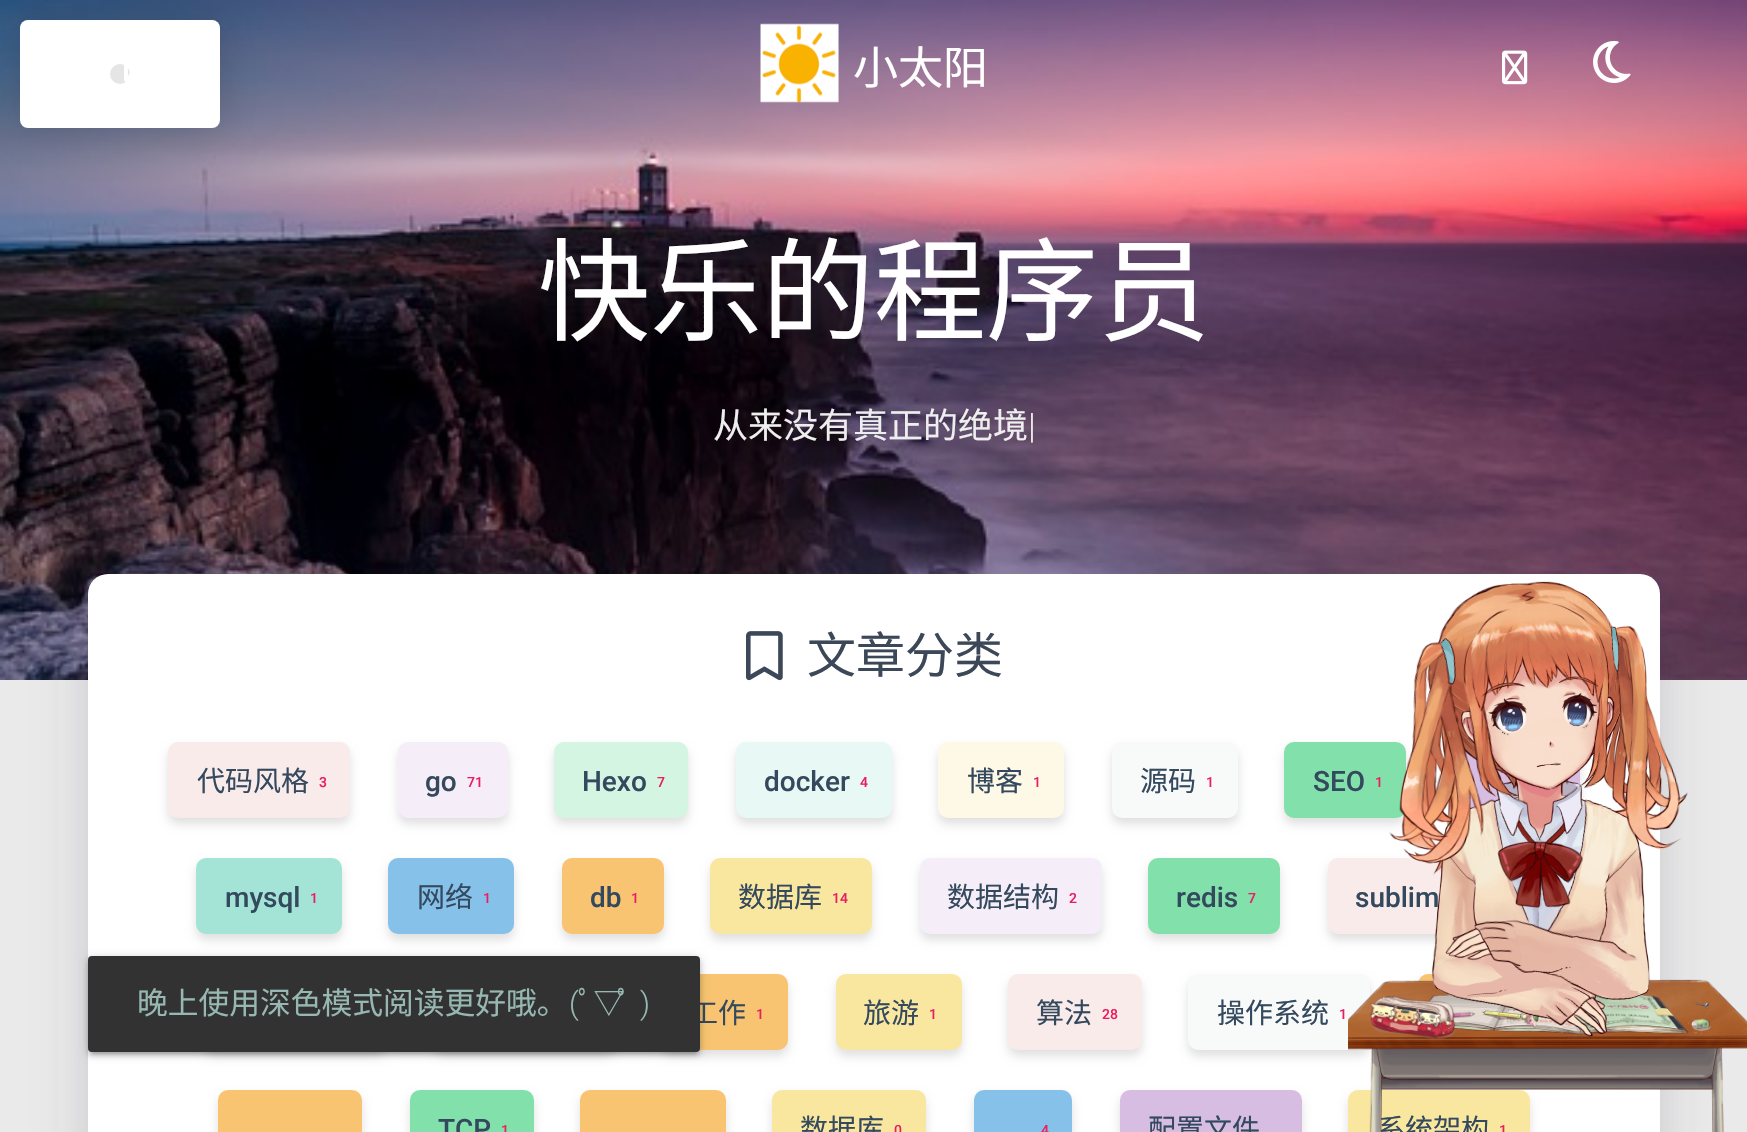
void draw(SkCanvas* canvas) {
	SkPaint paint;
	paint.setAntiAlias(true);
	canvas->clear(0xffeaeaea);
	canvas->drawImageRect(SkImages::DeferredFromEncodedData(SkData::MakeFromFileName("img5.png")), SkRect::MakeXYWH(0, 0, 1747, 680), SkSamplingOptions());
	paint.setColor(0x26000000);
	paint.setMaskFilter(SkMaskFilter::MakeBlur(kNormal_SkBlurStyle, 20));
	canvas->drawRoundRect(SkRect::MakeXYWH(20, 24, 200, 108), 8, 8, paint);
	paint.setMaskFilter(nullptr);
	paint.setColor(0xffffffff);
	canvas->drawRoundRect(SkRect::MakeXYWH(20, 20, 200, 108), 8, 8, paint);
	paint.setColor(0xffe5e5e5);
	canvas->drawCircle(120, 74, 10, paint);
	canvas->drawImageRect(SkImages::DeferredFromEncodedData(SkData::MakeFromFileName("img1.png")), SkRect::MakeXYWH(124, 65, 6, 18), SkSamplingOptions());
	canvas->drawImageRect(SkImages::DeferredFromEncodedData(SkData::MakeFromFileName("img2.png")), SkRect::MakeXYWH(760, 23, 79, 80), SkSamplingOptions());
	SkFont f1(fontMgr->matchFamilyStyle("Noto Sans CJK SC", SkFontStyle::Normal()), 45);
	f1.setSubpixel(true);
	paint.setColor(0xffffffff);
	canvas->drawString("小太阳", 853, 84, f1, paint);
	canvas->drawImageRect(SkImages::DeferredFromEncodedData(SkData::MakeFromFileName("img3.png")), SkRect::MakeXYWH(1502, 50, 26, 35), SkSamplingOptions());
	canvas->drawImageRect(SkImages::DeferredFromEncodedData(SkData::MakeFromFileName("img4.png")), SkRect::MakeXYWH(1593, 41, 38, 42), SkSamplingOptions());
	SkFont f2(fontMgr->matchFamilyStyle("Noto Sans CJK SC", SkFontStyle::Normal()), 112);
	f2.setSubpixel(true);
	canvas->drawString("快乐的程序员", 538, 332, f2, paint);
	SkFont f3(fontMgr->matchFamilyStyle("Noto Sans CJK SC", SkFontStyle::Normal()), 35);
	f3.setSubpixel(true);
	paint.setColor(0xffeeeeee);
	canvas->drawString("从来没有真正的绝境", 713, 438, f3, paint);
	SkFont f4(fontMgr->matchFamilyStyle("Roboto", SkFontStyle(300, SkFontStyle::kNormal_Width, SkFontStyle::kUpright_Slant)), 35);
	f4.setSubpixel(true);
	canvas->drawString("|", 1028, 438, f4, paint);
	paint.setColor(0x12000000);
	paint.setMaskFilter(SkMaskFilter::MakeBlur(kNormal_SkBlurStyle, 15));
	canvas->drawRoundRect(SkRect::MakeXYWH(88, 584, 1572, 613), 20, 20, paint);
	paint.setMaskFilter(nullptr);
	paint.setColor(0x1a32325d);
	paint.setMaskFilter(SkMaskFilter::MakeBlur(kNormal_SkBlurStyle, 35));
	canvas->drawRoundRect(SkRect::MakeXYWH(88, 604, 1572, 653), 20, 20, paint);
	paint.setMaskFilter(nullptr);
	paint.setColor(0xffffffff);
	canvas->drawRoundRect(SkRect::MakeXYWH(88, 574, 1572, 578), 20, 20, paint);
	canvas->drawImageRect(SkImages::DeferredFromEncodedData(SkData::MakeFromFileName("img6.png")), SkRect::MakeXYWH(746, 631, 37, 50), SkSamplingOptions());
	SkFont f5(fontMgr->matchFamilyStyle("Noto Sans CJK SC", SkFontStyle::Normal()), 49);
	f5.setSubpixel(true);
	paint.setColor(0xff3c4858);
	canvas->drawString("文章分类", 807, 673, f5, paint);
	paint.setColor(0x1f000000);
	paint.setMaskFilter(SkMaskFilter::MakeBlur(kNormal_SkBlurStyle, 5));
	canvas->drawRoundRect(SkRect::MakeXYWH(168, 748, 182, 76), 10, 10, paint);
	paint.setMaskFilter(nullptr);
	paint.setColor(0xfff9ebea);
	canvas->drawRoundRect(SkRect::MakeXYWH(168, 742, 182, 76), 10, 10, paint);
	SkFont f6(fontMgr->matchFamilyStyle("Noto Sans CJK SC", SkFontStyle::Normal()), 28);
	f6.setSubpixel(true);
	paint.setColor(0xff34495e);
	canvas->drawString("代码风格", 197, 791, f6, paint);
	SkFont f7(fontMgr->matchFamilyStyle("Roboto", SkFontStyle(500, SkFontStyle::kNormal_Width, SkFontStyle::kUpright_Slant)), 14);
	f7.setSubpixel(true);
	paint.setColor(0xffe91e63);
	canvas->drawString("3", 319, 787, f7, paint);
	paint.setColor(0x1f000000);
	paint.setMaskFilter(SkMaskFilter::MakeBlur(kNormal_SkBlurStyle, 5));
	canvas->drawRoundRect(SkRect::MakeXYWH(398, 748, 110, 76), 10, 10, paint);
	paint.setMaskFilter(nullptr);
	paint.setColor(0xfff5eef8);
	canvas->drawRoundRect(SkRect::MakeXYWH(398, 742, 110, 76), 10, 10, paint);
	SkFont f8(fontMgr->matchFamilyStyle("Roboto", SkFontStyle(500, SkFontStyle::kNormal_Width, SkFontStyle::kUpright_Slant)), 28);
	f8.setSubpixel(true);
	paint.setColor(0xff34495e);
	canvas->drawString("go", 425, 791, f8, paint);
	paint.setColor(0xffe91e63);
	canvas->drawString("71", 467, 787, f7, paint);
	paint.setColor(0x1f000000);
	paint.setMaskFilter(SkMaskFilter::MakeBlur(kNormal_SkBlurStyle, 5));
	canvas->drawRoundRect(SkRect::MakeXYWH(554, 748, 134, 76), 10, 10, paint);
	paint.setMaskFilter(nullptr);
	paint.setColor(0xffd5f5e3);
	canvas->drawRoundRect(SkRect::MakeXYWH(554, 742, 134, 76), 10, 10, paint);
	paint.setColor(0xff34495e);
	canvas->drawString("Hexo", 582, 791, f8, paint);
	paint.setColor(0xffe91e63);
	canvas->drawString("7", 657, 787, f7, paint);
	paint.setColor(0x1f000000);
	paint.setMaskFilter(SkMaskFilter::MakeBlur(kNormal_SkBlurStyle, 5));
	canvas->drawRoundRect(SkRect::MakeXYWH(736, 748, 156, 76), 10, 10, paint);
	paint.setMaskFilter(nullptr);
	paint.setColor(0xffe8f8f5);
	canvas->drawRoundRect(SkRect::MakeXYWH(736, 742, 156, 76), 10, 10, paint);
	paint.setColor(0xff34495e);
	canvas->drawString("docker", 764, 791, f8, paint);
	paint.setColor(0xffe91e63);
	canvas->drawString("4", 860, 787, f7, paint);
	paint.setColor(0x1f000000);
	paint.setMaskFilter(SkMaskFilter::MakeBlur(kNormal_SkBlurStyle, 5));
	canvas->drawRoundRect(SkRect::MakeXYWH(938, 748, 126, 76), 10, 10, paint);
	paint.setMaskFilter(nullptr);
	paint.setColor(0xfffef9e7);
	canvas->drawRoundRect(SkRect::MakeXYWH(938, 742, 126, 76), 10, 10, paint);
	paint.setColor(0xff34495e);
	canvas->drawString("博客", 967, 791, f6, paint);
	paint.setColor(0xffe91e63);
	canvas->drawString("1", 1033, 787, f7, paint);
	paint.setColor(0x1f000000);
	paint.setMaskFilter(SkMaskFilter::MakeBlur(kNormal_SkBlurStyle, 5));
	canvas->drawRoundRect(SkRect::MakeXYWH(1112, 748, 126, 76), 10, 10, paint);
	paint.setMaskFilter(nullptr);
	paint.setColor(0xfff8f9f9);
	canvas->drawRoundRect(SkRect::MakeXYWH(1112, 742, 126, 76), 10, 10, paint);
	paint.setColor(0xff34495e);
	canvas->drawString("源码", 1140, 791, f6, paint);
	paint.setColor(0xffe91e63);
	canvas->drawString("1", 1206, 787, f7, paint);
	paint.setColor(0x1f000000);
	paint.setMaskFilter(SkMaskFilter::MakeBlur(kNormal_SkBlurStyle, 5));
	canvas->drawRoundRect(SkRect::MakeXYWH(1284, 748, 122, 76), 10, 10, paint);
	paint.setMaskFilter(nullptr);
	paint.setColor(0xff82e0aa);
	canvas->drawRoundRect(SkRect::MakeXYWH(1284, 742, 122, 76), 10, 10, paint);
	paint.setColor(0xff34495e);
	canvas->drawString("SEO", 1313, 791, f8, paint);
	paint.setColor(0xffe91e63);
	canvas->drawString("1", 1375, 787, f7, paint);
	paint.setColor(0x1f000000);
	paint.setMaskFilter(SkMaskFilter::MakeBlur(kNormal_SkBlurStyle, 5));
	canvas->drawRoundRect(SkRect::MakeXYWH(1454, 748, 126, 76), 10, 10, paint);
	paint.setMaskFilter(nullptr);
	paint.setColor(0xffd7bde2);
	canvas->drawRect(SkRect::MakeXYWH(1464, 749, 116, 65), paint);
	paint.setColor(0x1f000000);
	paint.setMaskFilter(SkMaskFilter::MakeBlur(kNormal_SkBlurStyle, 5));
	canvas->drawRoundRect(SkRect::MakeXYWH(196, 864, 146, 76), 10, 10, paint);
	paint.setMaskFilter(nullptr);
	paint.setColor(0xffa3e4d7);
	canvas->drawRoundRect(SkRect::MakeXYWH(196, 858, 146, 76), 10, 10, paint);
	paint.setColor(0xff34495e);
	canvas->drawString("mysql", 225, 907, f8, paint);
	paint.setColor(0xffe91e63);
	canvas->drawString("1", 310, 903, f7, paint);
	paint.setColor(0x1f000000);
	paint.setMaskFilter(SkMaskFilter::MakeBlur(kNormal_SkBlurStyle, 5));
	canvas->drawRoundRect(SkRect::MakeXYWH(388, 864, 126, 76), 10, 10, paint);
	paint.setMaskFilter(nullptr);
	paint.setColor(0xff85c1e9);
	canvas->drawRoundRect(SkRect::MakeXYWH(388, 858, 126, 76), 10, 10, paint);
	paint.setColor(0xff34495e);
	canvas->drawString("网络", 417, 907, f6, paint);
	paint.setColor(0xffe91e63);
	canvas->drawString("1", 483, 903, f7, paint);
	paint.setColor(0x1f000000);
	paint.setMaskFilter(SkMaskFilter::MakeBlur(kNormal_SkBlurStyle, 5));
	canvas->drawRoundRect(SkRect::MakeXYWH(562, 864, 102, 76), 10, 10, paint);
	paint.setMaskFilter(nullptr);
	paint.setColor(0xfff8c471);
	canvas->drawRoundRect(SkRect::MakeXYWH(562, 858, 102, 76), 10, 10, paint);
	paint.setColor(0xff34495e);
	canvas->drawString("db", 590, 907, f8, paint);
	paint.setColor(0xffe91e63);
	canvas->drawString("1", 631, 903, f7, paint);
	paint.setColor(0x1f000000);
	paint.setMaskFilter(SkMaskFilter::MakeBlur(kNormal_SkBlurStyle, 5));
	canvas->drawRoundRect(SkRect::MakeXYWH(710, 864, 162, 76), 10, 10, paint);
	paint.setMaskFilter(nullptr);
	paint.setColor(0xfff9e79f);
	canvas->drawRoundRect(SkRect::MakeXYWH(710, 858, 162, 76), 10, 10, paint);
	paint.setColor(0xff34495e);
	canvas->drawString("数据库", 738, 907, f6, paint);
	paint.setColor(0xffe91e63);
	canvas->drawString("14", 832, 903, f7, paint);
	paint.setColor(0x1f000000);
	paint.setMaskFilter(SkMaskFilter::MakeBlur(kNormal_SkBlurStyle, 5));
	canvas->drawRoundRect(SkRect::MakeXYWH(920, 864, 182, 76), 10, 10, paint);
	paint.setMaskFilter(nullptr);
	paint.setColor(0xfff5eef8);
	canvas->drawRoundRect(SkRect::MakeXYWH(920, 858, 182, 76), 10, 10, paint);
	paint.setColor(0xff34495e);
	canvas->drawString("数据结构", 947, 907, f6, paint);
	paint.setColor(0xffe91e63);
	canvas->drawString("2", 1069, 903, f7, paint);
	paint.setColor(0x1f000000);
	paint.setMaskFilter(SkMaskFilter::MakeBlur(kNormal_SkBlurStyle, 5));
	canvas->drawRoundRect(SkRect::MakeXYWH(1148, 864, 132, 76), 10, 10, paint);
	paint.setMaskFilter(nullptr);
	paint.setColor(0xff82e0aa);
	canvas->drawRoundRect(SkRect::MakeXYWH(1148, 858, 132, 76), 10, 10, paint);
	paint.setColor(0xff34495e);
	canvas->drawString("redis", 1176, 907, f8, paint);
	paint.setColor(0xffe91e63);
	canvas->drawString("7", 1248, 903, f7, paint);
	paint.setColor(0x1f000000);
	paint.setMaskFilter(SkMaskFilter::MakeBlur(kNormal_SkBlurStyle, 5));
	canvas->drawRoundRect(SkRect::MakeXYWH(1328, 864, 224, 76), 10, 10, paint);
	paint.setMaskFilter(nullptr);
	paint.setColor(0xfff9ebea);
	canvas->drawRoundRect(SkRect::MakeXYWH(1328, 858, 224, 76), 10, 10, paint);
	paint.setColor(0xff34495e);
	canvas->drawString("sublim", 1355, 907, f8, paint);
	paint.setColor(0x1f000000);
	paint.setMaskFilter(SkMaskFilter::MakeBlur(kNormal_SkBlurStyle, 5));
	canvas->drawRoundRect(SkRect::MakeXYWH(204, 980, 182, 76), 10, 10, paint);
	paint.setMaskFilter(nullptr);
	paint.setMaskFilter(SkMaskFilter::MakeBlur(kNormal_SkBlurStyle, 5));
	canvas->drawRoundRect(SkRect::MakeXYWH(434, 980, 182, 76), 10, 10, paint);
	paint.setMaskFilter(nullptr);
	paint.setMaskFilter(SkMaskFilter::MakeBlur(kNormal_SkBlurStyle, 5));
	canvas->drawRoundRect(SkRect::MakeXYWH(662, 980, 126, 76), 10, 10, paint);
	paint.setMaskFilter(nullptr);
	paint.setColor(0xfff8c471);
	canvas->drawRoundRect(SkRect::MakeXYWH(662, 974, 126, 76), 10, 10, paint);
	paint.setColor(0xff34495e);
	canvas->drawString("工作", 690, 1023, f6, paint);
	paint.setColor(0xffe91e63);
	canvas->drawString("1", 756, 1019, f7, paint);
	paint.setColor(0x1f000000);
	paint.setMaskFilter(SkMaskFilter::MakeBlur(kNormal_SkBlurStyle, 5));
	canvas->drawRoundRect(SkRect::MakeXYWH(836, 980, 126, 76), 10, 10, paint);
	paint.setMaskFilter(nullptr);
	paint.setColor(0xfff9e79f);
	canvas->drawRoundRect(SkRect::MakeXYWH(836, 974, 126, 76), 10, 10, paint);
	paint.setColor(0xff34495e);
	canvas->drawString("旅游", 863, 1023, f6, paint);
	paint.setColor(0xffe91e63);
	canvas->drawString("1", 929, 1019, f7, paint);
	paint.setColor(0x1f000000);
	paint.setMaskFilter(SkMaskFilter::MakeBlur(kNormal_SkBlurStyle, 5));
	canvas->drawRoundRect(SkRect::MakeXYWH(1008, 980, 134, 76), 10, 10, paint);
	paint.setMaskFilter(nullptr);
	paint.setColor(0xfff9ebea);
	canvas->drawRoundRect(SkRect::MakeXYWH(1008, 974, 134, 76), 10, 10, paint);
	paint.setColor(0xff34495e);
	canvas->drawString("算法", 1036, 1023, f6, paint);
	paint.setColor(0xffe91e63);
	canvas->drawString("28", 1102, 1019, f7, paint);
	paint.setColor(0x1f000000);
	paint.setMaskFilter(SkMaskFilter::MakeBlur(kNormal_SkBlurStyle, 5));
	canvas->drawRoundRect(SkRect::MakeXYWH(1188, 980, 182, 76), 10, 10, paint);
	paint.setMaskFilter(nullptr);
	paint.setColor(0xfff8f9f9);
	canvas->drawRoundRect(SkRect::MakeXYWH(1188, 974, 182, 76), 10, 10, paint);
	paint.setColor(0xff34495e);
	canvas->drawString("操作系统", 1217, 1023, f6, paint);
	paint.setColor(0xffe91e63);
	canvas->drawString("1", 1339, 1019, f7, paint);
	paint.setColor(0x1f000000);
	paint.setMaskFilter(SkMaskFilter::MakeBlur(kNormal_SkBlurStyle, 5));
	canvas->drawRoundRect(SkRect::MakeXYWH(1418, 980, 126, 76), 10, 10, paint);
	paint.setMaskFilter(nullptr);
	paint.setColor(0xfff8c471);
	canvas->drawRoundRect(SkRect::MakeXYWH(1418, 974, 126, 76), 10, 10, paint);
	paint.setColor(0x1f000000);
	paint.setMaskFilter(SkMaskFilter::MakeBlur(kNormal_SkBlurStyle, 5));
	canvas->drawRoundRect(SkRect::MakeXYWH(218, 1096, 144, 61), 10, 10, paint);
	paint.setMaskFilter(nullptr);
	paint.setColor(0xfff8c471);
	canvas->drawRoundRect(SkRect::MakeXYWH(218, 1090, 144, 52), 10, 10, paint);
	paint.setColor(0x1f000000);
	paint.setMaskFilter(SkMaskFilter::MakeBlur(kNormal_SkBlurStyle, 5));
	canvas->drawRoundRect(SkRect::MakeXYWH(410, 1096, 124, 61), 10, 10, paint);
	paint.setMaskFilter(nullptr);
	paint.setColor(0xff82e0aa);
	canvas->drawRoundRect(SkRect::MakeXYWH(410, 1090, 124, 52), 10, 10, paint);
	paint.setColor(0xff34495e);
	canvas->drawString("TCP", 438, 1139, f8, paint);
	paint.setColor(0xffe91e63);
	canvas->drawString("1", 501, 1135, f7, paint);
	paint.setColor(0x1f000000);
	paint.setMaskFilter(SkMaskFilter::MakeBlur(kNormal_SkBlurStyle, 5));
	canvas->drawRoundRect(SkRect::MakeXYWH(580, 1096, 146, 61), 10, 10, paint);
	paint.setMaskFilter(nullptr);
	paint.setColor(0xfff8c471);
	canvas->drawRoundRect(SkRect::MakeXYWH(580, 1090, 146, 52), 10, 10, paint);
	paint.setColor(0x1f000000);
	paint.setMaskFilter(SkMaskFilter::MakeBlur(kNormal_SkBlurStyle, 5));
	canvas->drawRoundRect(SkRect::MakeXYWH(772, 1096, 154, 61), 10, 10, paint);
	paint.setMaskFilter(nullptr);
	paint.setColor(0xfff9e79f);
	canvas->drawRoundRect(SkRect::MakeXYWH(772, 1090, 154, 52), 10, 10, paint);
	paint.setColor(0xff34495e);
	canvas->drawString("数据库", 800, 1139, f6, paint);
	paint.setColor(0xffe91e63);
	canvas->drawString("0", 894, 1135, f7, paint);
	paint.setColor(0x1f000000);
	paint.setMaskFilter(SkMaskFilter::MakeBlur(kNormal_SkBlurStyle, 5));
	canvas->drawRoundRect(SkRect::MakeXYWH(974, 1096, 98, 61), 10, 10, paint);
	paint.setMaskFilter(nullptr);
	paint.setColor(0xff85c1e9);
	canvas->drawRoundRect(SkRect::MakeXYWH(974, 1090, 98, 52), 10, 10, paint);
	paint.setColor(0xffe91e63);
	canvas->drawString("4", 1041, 1135, f7, paint);
	paint.setColor(0x1f000000);
	paint.setMaskFilter(SkMaskFilter::MakeBlur(kNormal_SkBlurStyle, 5));
	canvas->drawRoundRect(SkRect::MakeXYWH(1120, 1096, 182, 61), 10, 10, paint);
	paint.setMaskFilter(nullptr);
	paint.setColor(0xffd7bde2);
	canvas->drawRoundRect(SkRect::MakeXYWH(1120, 1090, 182, 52), 10, 10, paint);
	paint.setColor(0xff34495e);
	canvas->drawString("配置文件", 1148, 1139, f6, paint);
	paint.setColor(0x1f000000);
	paint.setMaskFilter(SkMaskFilter::MakeBlur(kNormal_SkBlurStyle, 5));
	canvas->drawRoundRect(SkRect::MakeXYWH(1348, 1096, 182, 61), 10, 10, paint);
	paint.setMaskFilter(nullptr);
	paint.setColor(0xfff9e79f);
	canvas->drawRoundRect(SkRect::MakeXYWH(1348, 1090, 182, 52), 10, 10, paint);
	paint.setColor(0xff34495e);
	canvas->drawString("系统架构", 1377, 1139, f6, paint);
	paint.setColor(0xffe91e63);
	canvas->drawString("1", 1499, 1135, f7, paint);
	canvas->drawImageRect(SkImages::DeferredFromEncodedData(SkData::MakeFromFileName("img7.png")), SkRect::MakeXYWH(1348, 581, 399, 551), SkSamplingOptions());
	paint.setColor(0x33000000);
	paint.setMaskFilter(SkMaskFilter::MakeBlur(kNormal_SkBlurStyle, 5));
	canvas->drawRoundRect(SkRect::MakeXYWH(88, 958, 612, 96), 4, 4, paint);
	paint.setMaskFilter(nullptr);
	paint.setColor(0x1f000000);
	paint.setMaskFilter(SkMaskFilter::MakeBlur(kNormal_SkBlurStyle, 1));
	canvas->drawRect(SkRect::MakeXYWH(92, 966, 604, 88), paint);
	paint.setMaskFilter(nullptr);
	paint.setColor(0x24000000);
	paint.setMaskFilter(SkMaskFilter::MakeBlur(kNormal_SkBlurStyle, 2));
	canvas->drawRoundRect(SkRect::MakeXYWH(88, 960, 612, 96), 4, 4, paint);
	paint.setMaskFilter(nullptr);
	paint.setColor(0xff323232);
	canvas->drawRoundRect(SkRect::MakeXYWH(88, 956, 612, 96), 4, 4, paint);
	SkFont f9(fontMgr->matchFamilyStyle("Noto Sans CJK SC", SkFontStyle::Normal()), 30.75);
	f9.setSubpixel(true);
	paint.setColor(0xff97b8b2);
	canvas->drawString("晚上使用深色模式阅读更好哦。", 137, 1014, f9, paint);
	SkFont f10(fontMgr->matchFamilyStyle("Roboto", SkFontStyle(300, SkFontStyle::kNormal_Width, SkFontStyle::kUpright_Slant)), 30.75);
	f10.setSubpixel(true);
	canvas->drawString("(", 569, 1014, f10, paint);
	canvas->drawString("ﾟ▽", 578, 1014, f9, paint);
	canvas->drawString("ﾟ", 617, 1014, f9, paint);
	canvas->drawString(")", 640, 1014, f10, paint);
}
